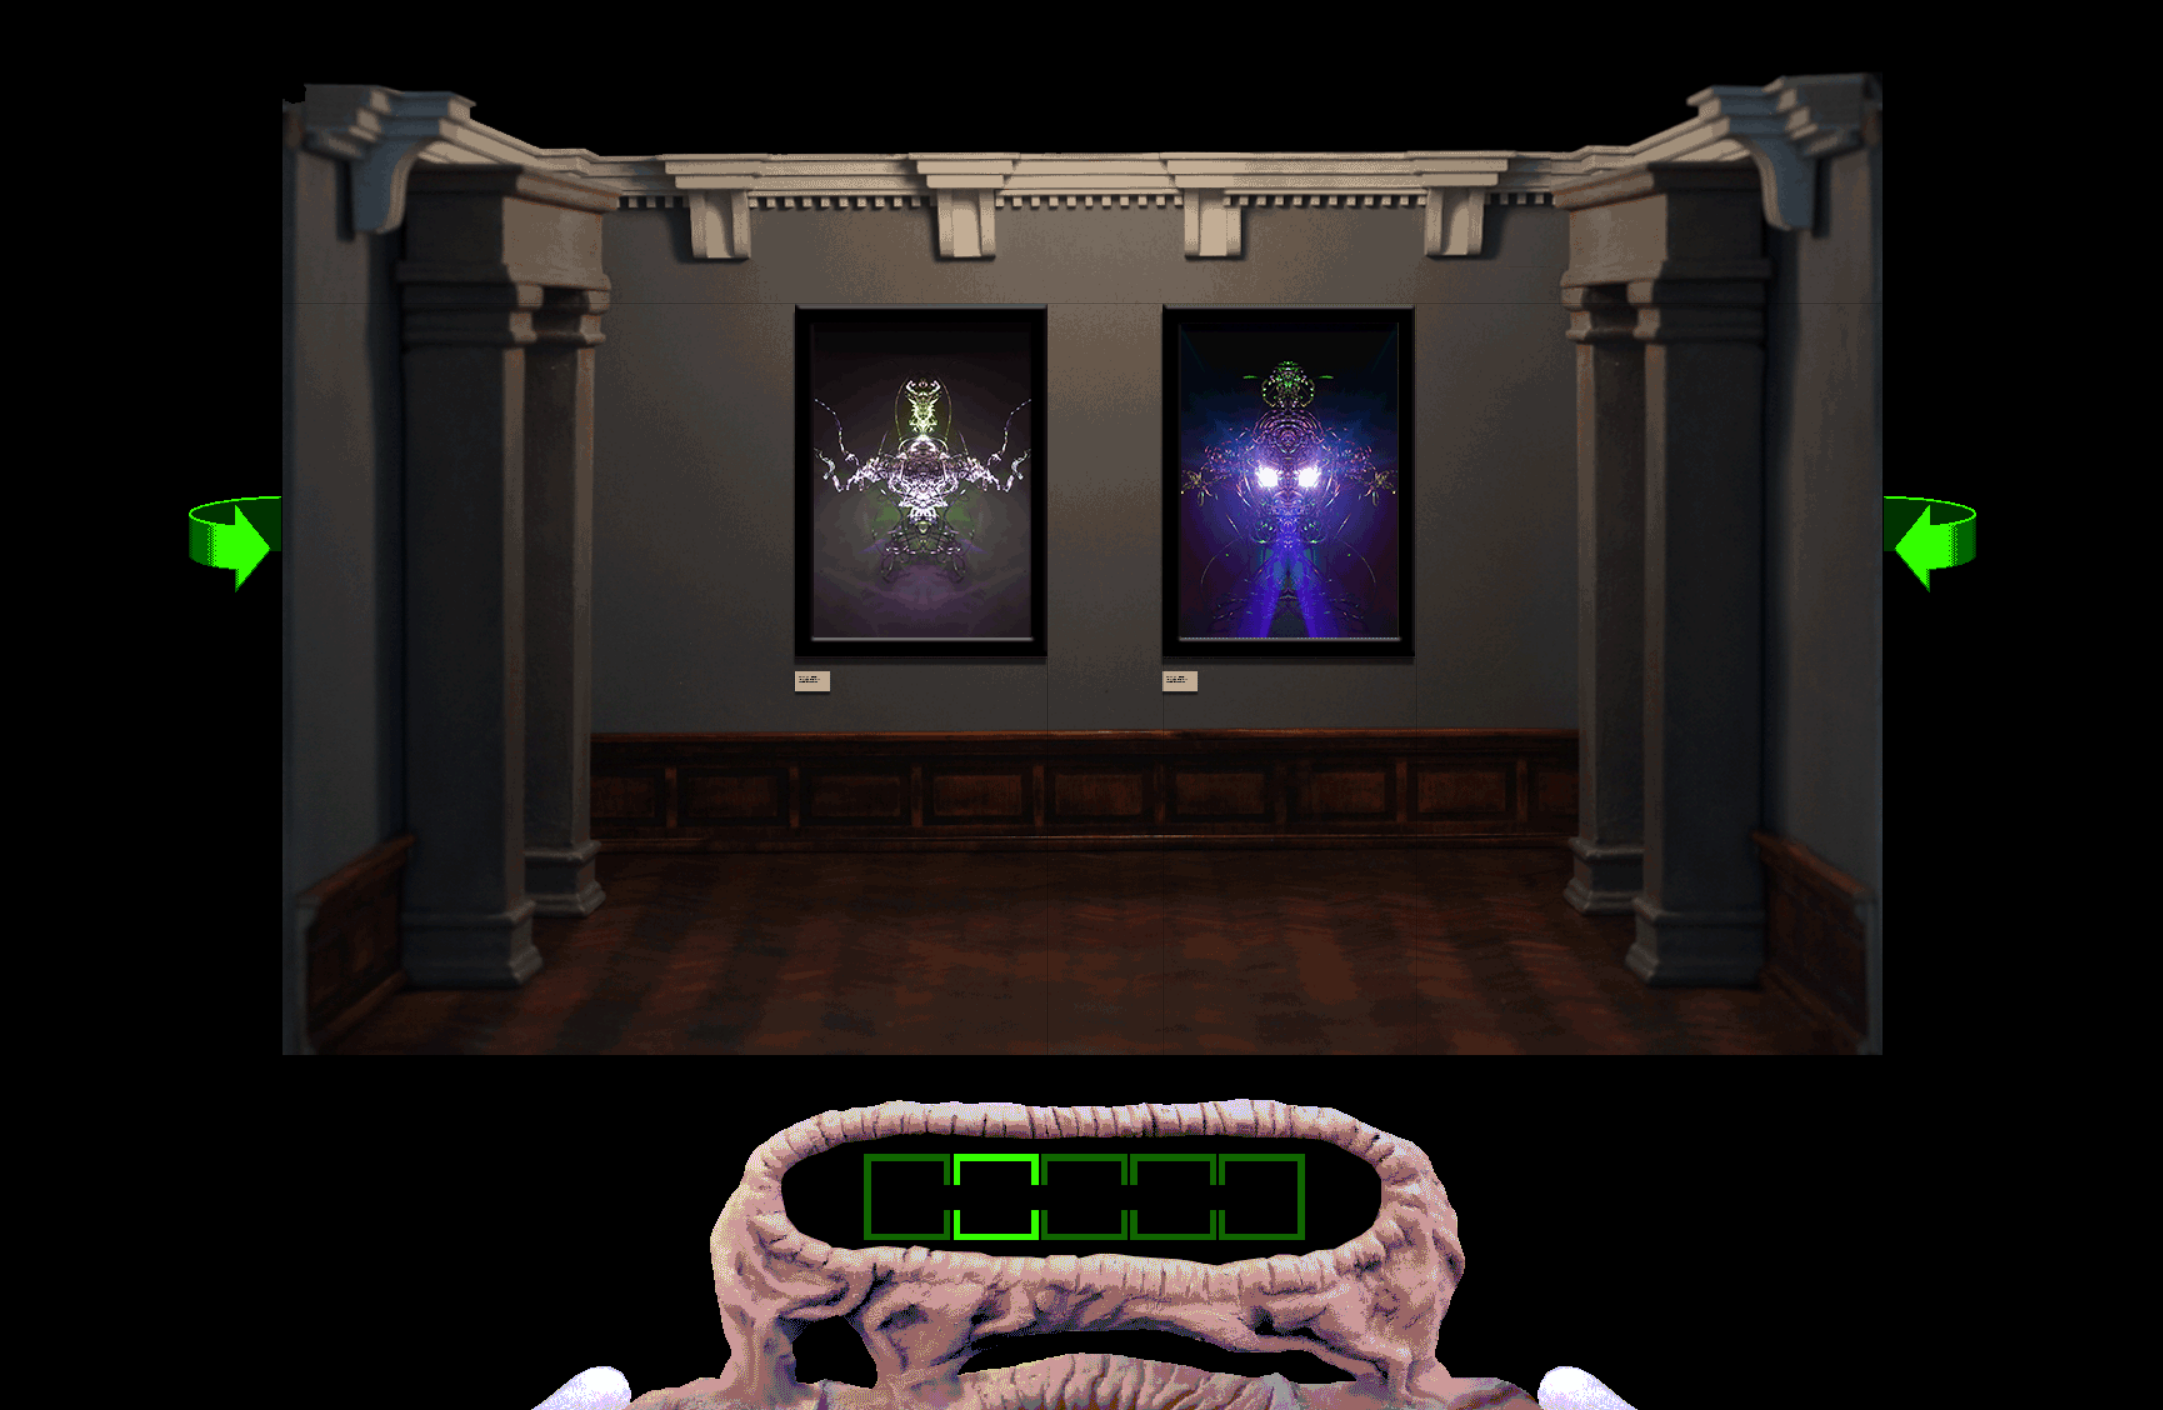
void draw(SkCanvas* canvas) {
	SkPaint paint;
	paint.setAntiAlias(true);
	canvas->clear(0xff000000);
	canvas->drawImageRect(SkImages::DeferredFromEncodedData(SkData::MakeFromFileName("img1.png")), SkRect::MakeXYWH(282, 71, 1601, 233), SkSamplingOptions());
	canvas->drawImageRect(SkImages::DeferredFromEncodedData(SkData::MakeFromFileName("img2.png")), SkRect::MakeXYWH(188, 496, 94, 97), SkSamplingOptions());
	canvas->drawImageRect(SkImages::DeferredFromEncodedData(SkData::MakeFromFileName("img3.png")), SkRect::MakeXYWH(1883, 496, 94, 97), SkSamplingOptions());
	canvas->drawImageRect(SkImages::DeferredFromEncodedData(SkData::MakeFromFileName("img4.png")), SkRect::MakeXYWH(282, 303, 513, 753), SkSamplingOptions());
	canvas->drawImageRect(SkImages::DeferredFromEncodedData(SkData::MakeFromFileName("img5.png")), SkRect::MakeXYWH(795, 303, 253, 356), SkSamplingOptions());
	canvas->drawImageRect(SkImages::DeferredFromEncodedData(SkData::MakeFromFileName("img6.png")), SkRect::MakeXYWH(1047, 303, 117, 753), SkSamplingOptions());
	canvas->drawImageRect(SkImages::DeferredFromEncodedData(SkData::MakeFromFileName("img7.png")), SkRect::MakeXYWH(1163, 303, 254, 356), SkSamplingOptions());
	canvas->drawImageRect(SkImages::DeferredFromEncodedData(SkData::MakeFromFileName("img8.png")), SkRect::MakeXYWH(1416, 303, 467, 753), SkSamplingOptions());
	canvas->drawImageRect(SkImages::DeferredFromEncodedData(SkData::MakeFromFileName("img9.png")), SkRect::MakeXYWH(795, 659, 253, 397), SkSamplingOptions());
	canvas->drawImageRect(SkImages::DeferredFromEncodedData(SkData::MakeFromFileName("img10.png")), SkRect::MakeXYWH(1163, 659, 254, 397), SkSamplingOptions());
	canvas->drawImageRect(SkImages::DeferredFromEncodedData(SkData::MakeFromFileName("img11.png")), SkRect::MakeXYWH(530, 1098, 1109, 312), SkSamplingOptions());
}
